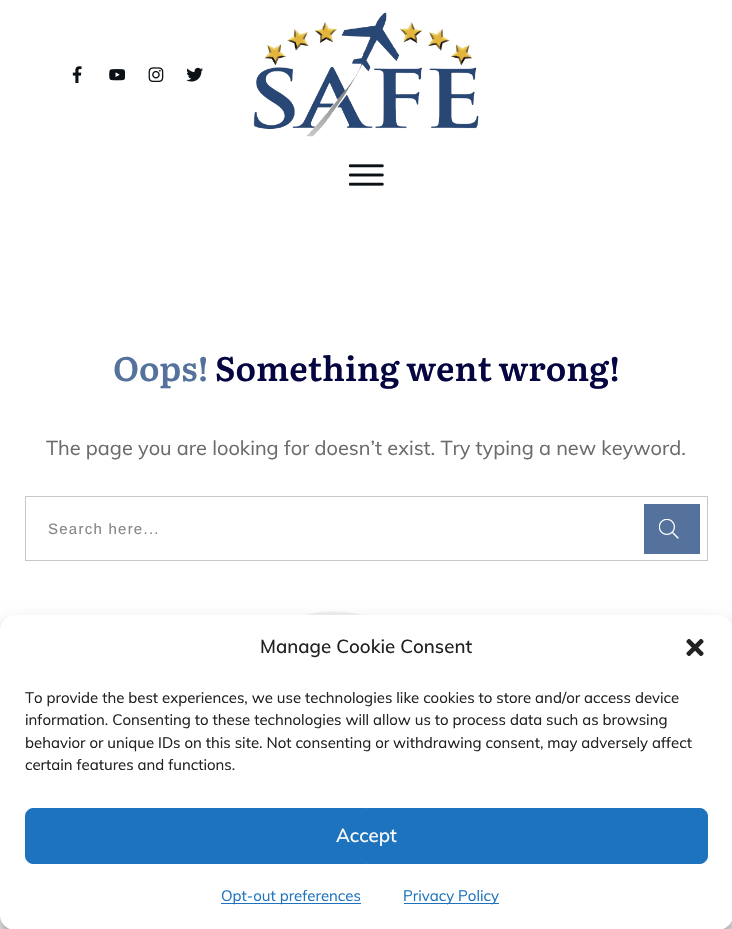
void draw(SkCanvas* canvas) {
	SkPaint paint;
	paint.setAntiAlias(true);
	auto spacedText = [&](const char* s, float x, float y, const SkFont& font, const SkPaint& ink, float letter, float word) {
		std::vector<SkGlyphID> glyphs(font.countText(s, strlen(s), SkTextEncoding::kUTF8));
		std::vector<float> xs(glyphs.size());
		font.textToGlyphs(s, strlen(s), SkTextEncoding::kUTF8, glyphs);
		font.getXPos(glyphs, xs, x);
		float extra = 0;
		for (size_t i = 0; i < glyphs.size(); i++) {
			xs[i] += extra;
			extra += letter + word * (glyphs[i] == font.unicharToGlyph(' '));
		}
		canvas->drawTextBlob(SkTextBlob::MakeFromPosHGlyphs(glyphs, xs, y, font), 0, 0, ink);
	};
	canvas->clear(0xffffffff);
	canvas->drawImageRect(SkImages::DeferredFromEncodedData(SkData::MakeFromFileName("img1.png")), SkRect::MakeXYWH(72, 66, 10, 17), SkSamplingOptions());
	canvas->drawImageRect(SkImages::DeferredFromEncodedData(SkData::MakeFromFileName("img2.png")), SkRect::MakeXYWH(109, 69, 16, 12), SkSamplingOptions());
	canvas->drawImageRect(SkImages::DeferredFromEncodedData(SkData::MakeFromFileName("img3.png")), SkRect::MakeXYWH(148, 67, 16, 15), SkSamplingOptions());
	canvas->drawImageRect(SkImages::DeferredFromEncodedData(SkData::MakeFromFileName("img4.png")), SkRect::MakeXYWH(186, 67, 17, 15), SkSamplingOptions());
	canvas->drawImageRect(SkImages::DeferredFromEncodedData(SkData::MakeFromFileName("img5.png")), SkRect::MakeXYWH(253, 12, 226, 125), SkSamplingOptions());
	canvas->drawImageRect(SkImages::DeferredFromEncodedData(SkData::MakeFromFileName("img6.png")), SkRect::MakeXYWH(349, 164, 35, 22), SkSamplingOptions());
	SkFont f1(fontMgr->matchFamilyStyle("Literata", SkFontStyle(600, SkFontStyle::kNormal_Width, SkFontStyle::kUpright_Slant)), 33.75);
	f1.setSubpixel(true);
	paint.setColor(0xff54729c);
	canvas->drawString("Oops!", 113, 381, f1, paint);
	paint.setColor(0xff050541);
	canvas->drawString("Something went wrong!", 215, 381, f1, paint);
	SkFont f2(fontMgr->matchFamilyStyle("Muli", SkFontStyle::Normal()), 20);
	f2.setSubpixel(true);
	paint.setColor(0xff6a6b6c);
	canvas->drawString("The page you are looking for doesn’t exist. Try typing a new keyword.", 46, 455, f2, paint);
	paint.setStroke(true);
	paint.setStrokeWidth(1);
	paint.setColor(0xffc7c7c7);
	canvas->drawRect(SkRect::MakeXYWH(25.5, 496.5, 682, 64), paint);
	SkFont f3(fontMgr->matchFamilyStyle("Liberation Sans", SkFontStyle::Normal()), 15);
	f3.setSubpixel(true);
	paint.setStroke(false);
	paint.setColor(0xff858585);
	spacedText("Search here...", 48, 534, f3, paint, 1.25, 0);
	paint.setColor(0xff54729c);
	canvas->drawRect(SkRect::MakeXYWH(644, 504, 56, 50), paint);
	canvas->drawImageRect(SkImages::DeferredFromEncodedData(SkData::MakeFromFileName("img7.png")), SkRect::MakeXYWH(659, 519, 20, 20), SkSamplingOptions());
	canvas->drawImageRect(SkImages::DeferredFromEncodedData(SkData::MakeFromFileName("img8.png")), SkRect::MakeXYWH(305, 611, 57, 4), SkSamplingOptions());
	paint.setColor(0x3b000000);
	paint.setMaskFilter(SkMaskFilter::MakeBlur(kNormal_SkBlurStyle, 4));
	canvas->drawRoundRect(SkRect::MakeXYWH(0, 623, 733, 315), 15, 15, paint);
	paint.setMaskFilter(nullptr);
	paint.setColor(0x30000000);
	paint.setMaskFilter(SkMaskFilter::MakeBlur(kNormal_SkBlurStyle, 12.5));
	canvas->drawRoundRect(SkRect::MakeXYWH(0, 628, 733, 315), 15, 15, paint);
	paint.setMaskFilter(nullptr);
	paint.setColor(0xffffffff);
	canvas->drawRoundRect(SkRect::MakeXYWH(0, 615, 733, 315), 15, 15, paint);
	SkFont f4(fontMgr->matchFamilyStyle("Muli", SkFontStyle(500, SkFontStyle::kNormal_Width, SkFontStyle::kUpright_Slant)), 18.75);
	f4.setSubpixel(true);
	paint.setColor(0xff222222);
	canvas->drawString("Manage Cookie Consent", 260, 653, f4, paint);
	canvas->drawImageRect(SkImages::DeferredFromEncodedData(SkData::MakeFromFileName("img9.png")), SkRect::MakeXYWH(686, 638, 18, 18), SkSamplingOptions());
	SkFont f5(fontMgr->matchFamilyStyle("Muli", SkFontStyle::Normal()), 15);
	f5.setSubpixel(true);
	canvas->drawString("To provide the best experiences, we use technologies like cookies to store and/or access device", 25, 703, f5, paint);
	canvas->drawString("information. Consenting to these technologies will allow us to process data such as browsing", 25, 725, f5, paint);
	canvas->drawString("behavior or unique IDs on this site. Not consenting or withdrawing consent, may adversely affect", 25, 748, f5, paint);
	canvas->drawString("certain features and functions.", 25, 770, f5, paint);
	paint.setColor(0xff1e73be);
	canvas->drawRoundRect(SkRect::MakeXYWH(25.5, 808.5, 682, 55), 7.5, 7.5, paint);
	paint.setStroke(true);
	canvas->drawRoundRect(SkRect::MakeXYWH(25.5, 808.5, 682, 55), 7.5, 7.5, paint);
	paint.setStroke(false);
	paint.setColor(0xffffffff);
	canvas->drawString("Accept", 336, 842, f4, paint);
	paint.setColor(0xff1e73be);
	canvas->drawRect(SkRect::MakeXYWH(221, 903, 140, 1), paint);
	canvas->drawString("Opt-out preferences", 221, 901, f5, paint);
	canvas->drawRect(SkRect::MakeXYWH(404, 903, 95, 1), paint);
	canvas->drawString("Privacy Policy", 403, 901, f5, paint);
}
